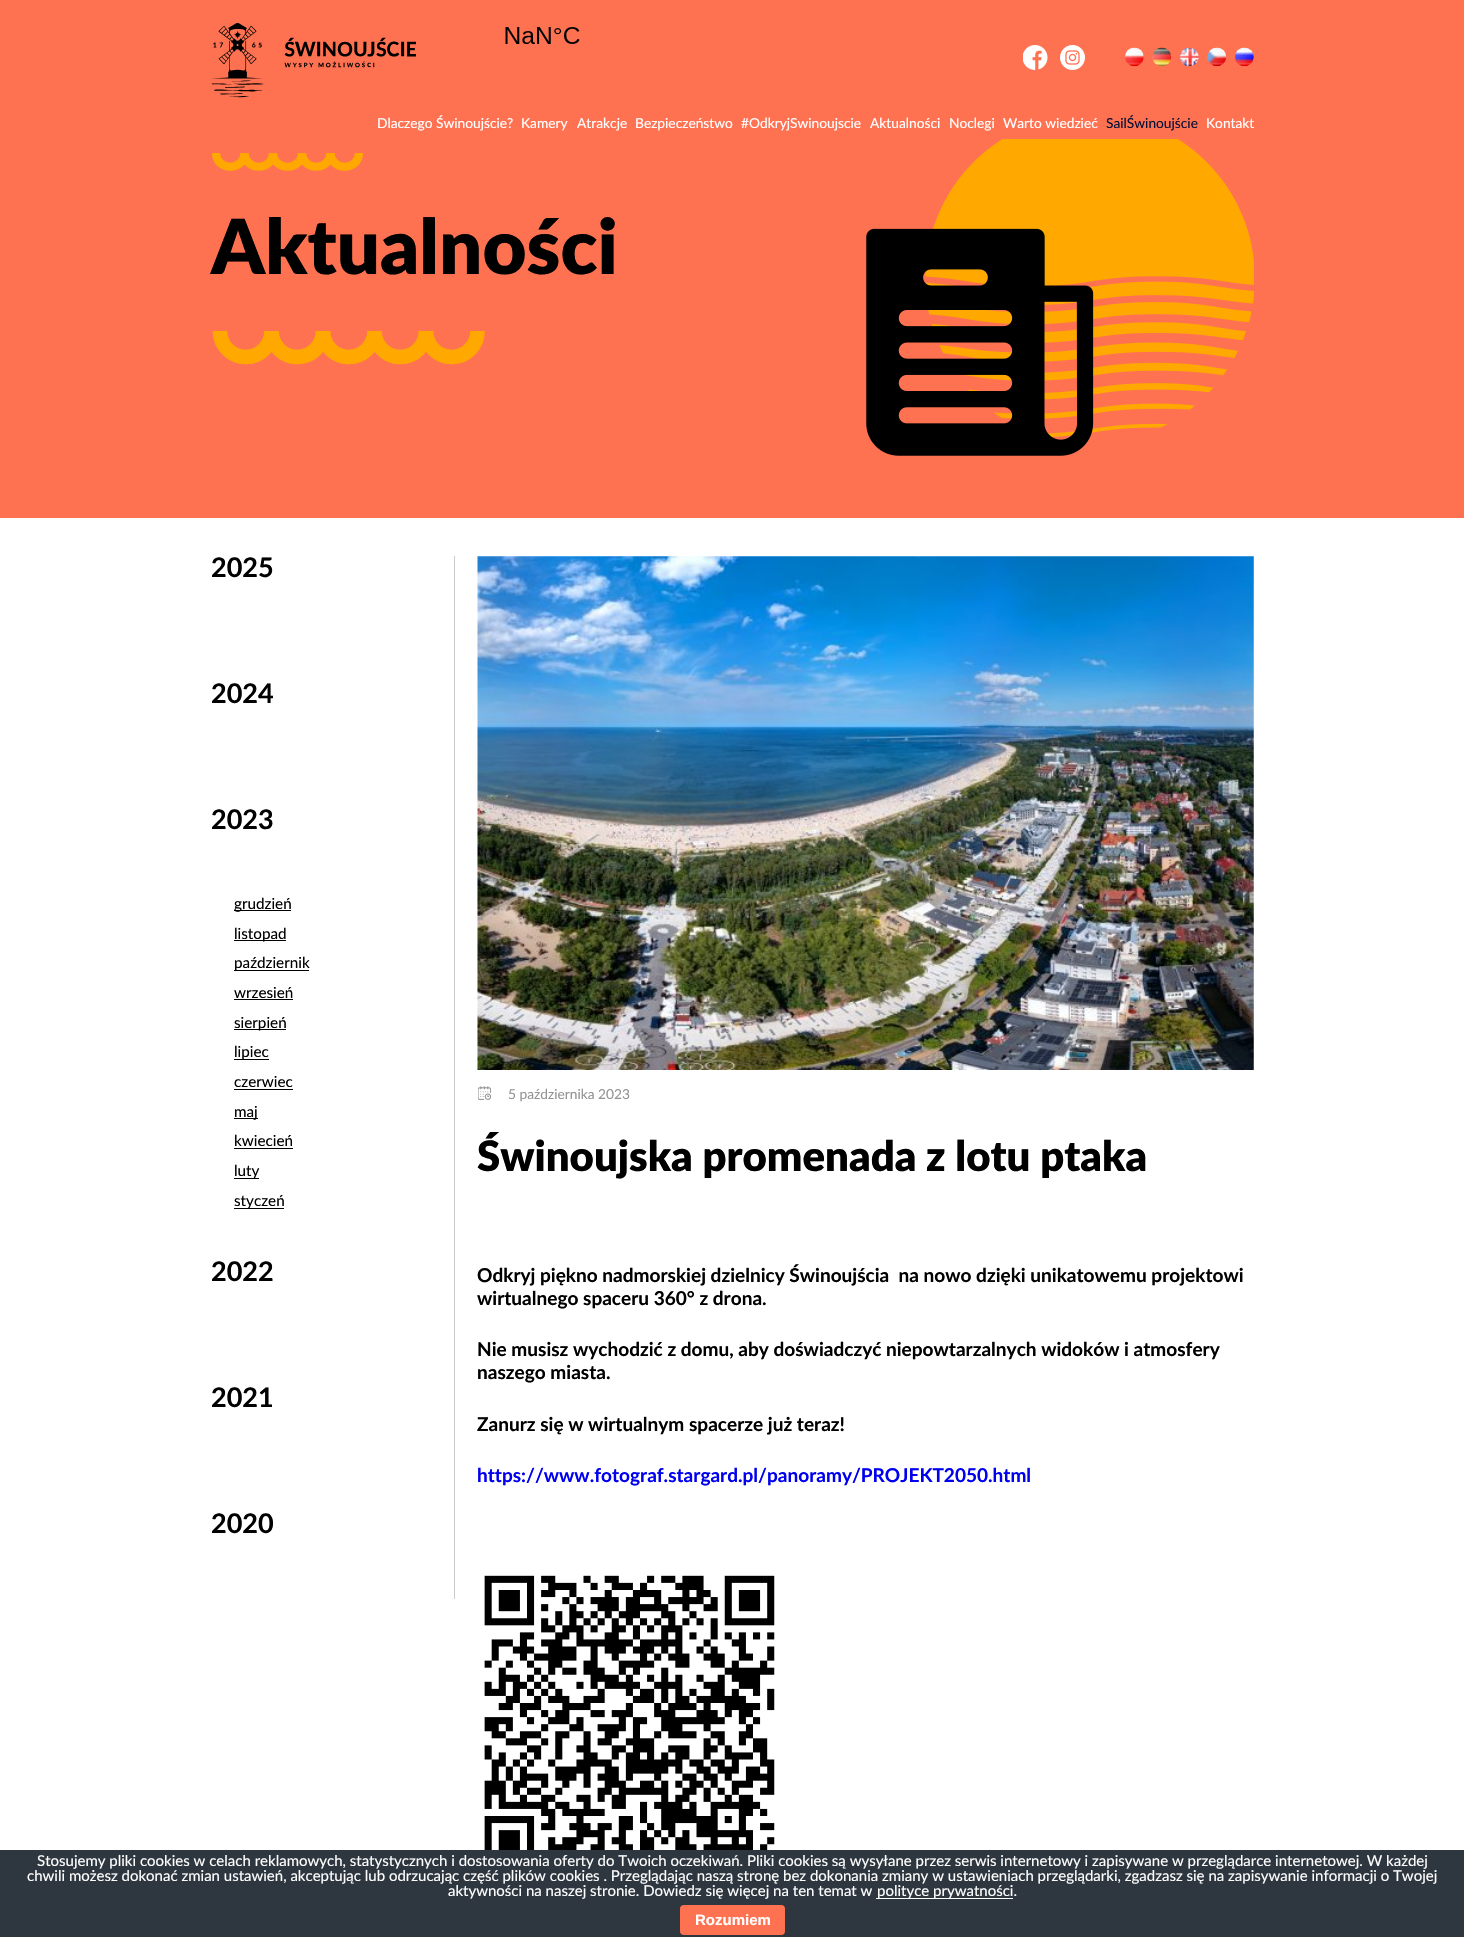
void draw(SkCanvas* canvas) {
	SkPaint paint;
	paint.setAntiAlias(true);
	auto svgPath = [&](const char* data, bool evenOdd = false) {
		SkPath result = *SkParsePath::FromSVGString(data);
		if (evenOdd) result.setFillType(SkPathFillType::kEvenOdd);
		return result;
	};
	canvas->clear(0xffffffff);
	paint.setColor(0xffff7251);
	canvas->drawRect(SkRect::MakeXYWH(0, 0, 1464, 518), paint);
	canvas->drawImageRect(SkImages::DeferredFromEncodedData(SkData::MakeFromFileName("img1.png")), SkRect::MakeXYWH(505, 27, 75, 17), SkSamplingOptions());
	canvas->drawImageRect(SkImages::DeferredFromEncodedData(SkData::MakeFromFileName("img2.png")), SkRect::MakeXYWH(211, 23, 205, 75), SkSamplingOptions());
	canvas->drawImageRect(SkImages::DeferredFromEncodedData(SkData::MakeFromFileName("img3.png")), SkRect::MakeXYWH(1023, 45, 25, 25), SkSamplingOptions());
	canvas->drawImageRect(SkImages::DeferredFromEncodedData(SkData::MakeFromFileName("img4.png")), SkRect::MakeXYWH(1060, 45, 25, 25), SkSamplingOptions());
	canvas->drawImageRect(SkImages::DeferredFromEncodedData(SkData::MakeFromFileName("img5.png")), SkRect::MakeXYWH(1125, 47, 19, 20), SkSamplingOptions());
	canvas->drawImageRect(SkImages::DeferredFromEncodedData(SkData::MakeFromFileName("img6.png")), SkRect::MakeXYWH(1152, 47, 20, 20), SkSamplingOptions());
	canvas->drawImageRect(SkImages::DeferredFromEncodedData(SkData::MakeFromFileName("img7.png")), SkRect::MakeXYWH(1180, 47, 19, 20), SkSamplingOptions());
	canvas->drawImageRect(SkImages::DeferredFromEncodedData(SkData::MakeFromFileName("img8.png")), SkRect::MakeXYWH(1207, 47, 20, 20), SkSamplingOptions());
	canvas->drawImageRect(SkImages::DeferredFromEncodedData(SkData::MakeFromFileName("img9.png")), SkRect::MakeXYWH(1235, 47, 19, 20), SkSamplingOptions());
	SkFont f1(fontMgr->matchFamilyStyle("Lato", SkFontStyle::Normal()), 13.75);
	f1.setSubpixel(true);
	paint.setColor(0xffffffff);
	canvas->drawString("Dlaczego Świnoujście?", 377, 128, f1, paint);
	canvas->drawString("Kamery", 521, 128, f1, paint);
	canvas->drawString("Atrakcje", 577, 128, f1, paint);
	canvas->drawString("Bezpieczeństwo", 635, 128, f1, paint);
	canvas->drawString("#OdkryjSwinoujscie", 741, 128, f1, paint);
	canvas->drawString("Aktualności", 870, 128, f1, paint);
	canvas->drawString("Noclegi", 949, 128, f1, paint);
	canvas->drawString("Warto wiedzieć", 1003, 128, f1, paint);
	paint.setColor(0xff050f36);
	canvas->drawString("SailŚwinoujście", 1106, 128, f1, paint);
	paint.setColor(0xffffffff);
	canvas->drawString("Kontakt", 1206, 128, f1, paint);
	canvas->save();
	canvas->clipRect(SkRect::MakeXYWH(211, 153, 152, 18));
	paint.setStroke(true);
	paint.setStrokeWidth(8.2);
	paint.setStrokeJoin(SkPaint::kBevel_Join);
	paint.setColor(0xffffa800);
	canvas->drawPath(svgPath("M273 152.5C273 171.5 244.5 171.5 244.5 152.5C244.5 171.5 216 171.5 216 152.5"), paint);
	canvas->drawPath(svgPath("M330.5 152.5C330.5 171.5 302 171.5 302 152.5C302 171.5 273 171.5 273 152.5"), paint);
	canvas->drawPath(svgPath("M359 152.5C359 171.5 330.5 171.5 330.5 152.5"), paint);
	canvas->restore();
	SkFont f2(fontMgr->matchFamilyStyle("Lato", SkFontStyle(900, SkFontStyle::kNormal_Width, SkFontStyle::kUpright_Slant)), 76);
	f2.setSubpixel(true);
	paint.setStroke(false);
	paint.setColor(0xff000000);
	canvas->drawString("Aktualności", 211, 274, f2, paint);
	paint.setStroke(true);
	paint.setStrokeWidth(14.7);
	paint.setColor(0xffffa800);
	canvas->drawPath(svgPath("M323 331C323 345.5 311.5 357 297 357C283 357 271.5 345.5 271.5 331C271.5 345.5 260 357 245.5 357C231.5 357 220 345.5 220 331"), paint);
	canvas->drawPath(svgPath("M426 331C426 345.5 414.5 357 400 357C386 357 374.5 345.5 374.5 331C374.5 345.5 363 357 348.5 357C334.5 357 323 345.5 323 331"), paint);
	canvas->drawPath(svgPath("M477.5 331C477.5 345.5 466 357 451.5 357C437.5 357 426 345.5 426 331"), paint);
	canvas->drawImageRect(SkImages::DeferredFromEncodedData(SkData::MakeFromFileName("img10.png")), SkRect::MakeXYWH(866, 139, 388, 317), SkSamplingOptions());
	paint.setStroke(false);
	paint.setColor(0xffcccccc);
	canvas->drawRect(SkRect::MakeXYWH(454, 556, 1, 1043), paint);
	SkFont f3(fontMgr->matchFamilyStyle("Lato", SkFontStyle::Bold()), 27);
	f3.setSubpixel(true);
	paint.setColor(0xff000000);
	canvas->drawString("2025", 211, 577, f3, paint);
	canvas->drawString("2024", 211, 703, f3, paint);
	canvas->drawString("2023", 211, 829, f3, paint);
	canvas->drawRect(SkRect::MakeXYWH(234, 910, 57, 1), paint);
	SkFont f4(fontMgr->matchFamilyStyle("Lato", SkFontStyle::Normal()), 15.25);
	f4.setSubpixel(true);
	canvas->drawString("grudzień", 234, 909, f4, paint);
	canvas->drawRect(SkRect::MakeXYWH(234, 940, 52, 1), paint);
	canvas->drawString("listopad", 234, 939, f4, paint);
	canvas->drawRect(SkRect::MakeXYWH(234, 970, 75, 1), paint);
	canvas->drawString("październik", 234, 968, f4, paint);
	canvas->drawString("wrzesień", 234, 998, f4, paint);
	canvas->drawRect(SkRect::MakeXYWH(234, 999, 59, 1), paint);
	canvas->drawRect(SkRect::MakeXYWH(234, 1029, 52, 1), paint);
	canvas->drawString("sierpień", 234, 1028, f4, paint);
	canvas->drawRect(SkRect::MakeXYWH(234, 1059, 35, 1), paint);
	canvas->drawString("lipiec", 234, 1057, f4, paint);
	canvas->drawString("czerwiec", 234, 1087, f4, paint);
	canvas->drawRect(SkRect::MakeXYWH(234, 1089, 59, 1), paint);
	canvas->drawRect(SkRect::MakeXYWH(234, 1118, 24, 1), paint);
	canvas->drawString("maj", 234, 1117, f4, paint);
	canvas->drawString("kwiecień", 234, 1146, f4, paint);
	canvas->drawRect(SkRect::MakeXYWH(234, 1148, 59, 1), paint);
	canvas->drawRect(SkRect::MakeXYWH(234, 1178, 25, 1), paint);
	canvas->drawString("luty", 234, 1176, f4, paint);
	canvas->drawRect(SkRect::MakeXYWH(234, 1208, 50, 1), paint);
	canvas->drawString("styczeń", 234, 1206, f4, paint);
	canvas->drawString("2022", 211, 1281, f3, paint);
	canvas->drawString("2021", 211, 1407, f3, paint);
	canvas->drawString("2020", 211, 1533, f3, paint);
	canvas->drawImageRect(SkImages::DeferredFromEncodedData(SkData::MakeFromFileName("img11.png")), SkRect::MakeXYWH(477, 556, 777, 514), SkSamplingOptions());
	canvas->drawImageRect(SkImages::DeferredFromEncodedData(SkData::MakeFromFileName("img12.png")), SkRect::MakeXYWH(478, 1086, 13, 14), SkSamplingOptions());
	paint.setColor(0xff939393);
	canvas->drawString("5 października 2023", 508, 1099, f1, paint);
	SkFont f5(fontMgr->matchFamilyStyle("Lato", SkFontStyle(900, SkFontStyle::kNormal_Width, SkFontStyle::kUpright_Slant)), 41.9);
	f5.setSubpixel(true);
	paint.setColor(0xff000000);
	canvas->drawString("Świnoujska promenada z lotu ptaka", 477, 1171, f5, paint);
	SkFont f6(fontMgr->matchFamilyStyle("Lato", SkFontStyle::Bold()), 19.05);
	f6.setSubpixel(true);
	canvas->drawString("Odkryj piękno nadmorskiej dzielnicy Świnoujścia  na nowo dzięki unikatowemu projektowi", 477, 1282, f6, paint);
	canvas->drawString("wirtualnego spaceru 360° z drona.", 477, 1305, f6, paint);
	canvas->drawString("Nie musisz wychodzić z domu, aby doświadczyć niepowtarzalnych widoków i atmosfery", 477, 1356, f6, paint);
	canvas->drawString("naszego miasta.", 477, 1379, f6, paint);
	canvas->drawString("Zanurz się w wirtualnym spacerze już teraz!", 477, 1431, f6, paint);
	paint.setColor(0xff0000ee);
	canvas->drawString("https://www.fotograf.stargard.pl/panoramy/PROJEKT2050.html", 477, 1482, f6, paint);
	canvas->drawImageRect(SkImages::DeferredFromEncodedData(SkData::MakeFromFileName("img13.png")), SkRect::MakeXYWH(484, 1575, 291, 275), SkSamplingOptions());
	paint.setColor(0xff2e363f);
	canvas->drawRect(SkRect::MakeXYWH(0, 1850, 1464, 87), paint);
	SkFont f7(fontMgr->matchFamilyStyle("Lato", SkFontStyle::Normal()), 15);
	f7.setSubpixel(true);
	paint.setColor(0xffffffff);
	canvas->drawString("Stosujemy pliki cookies w celach reklamowych, statystycznych i dostosowania oferty do Twoich oczekiwań. Pliki cookies są wysyłane przez serwis internetowy i zapisywane w przeglądarce internetowej. W każdej", 37, 1866, f7, paint);
	canvas->drawString("chwili możesz dokonać zmian ustawień, akceptując lub odrzucając część plików cookies . Przeglądając naszą stronę bez dokonania zmiany w ustawieniach przeglądarki, zgadzasz się na zapisywanie informacji o Twojej", 27, 1881, f7, paint);
	canvas->drawString("aktywności na naszej stronie. Dowiedz się więcej na ten temat w", 448, 1896, f7, paint);
	canvas->drawRect(SkRect::MakeXYWH(876, 1898, 137, 1), paint);
	canvas->drawString("polityce prywatności.", 877, 1896, f7, paint);
	paint.setColor(0xffff7251);
	canvas->drawRoundRect(SkRect::MakeXYWH(680, 1905, 105, 30), 4, 4, paint);
	SkFont f8(fontMgr->matchFamilyStyle("Liberation Sans", SkFontStyle::Bold()), 15);
	f8.setSubpixel(true);
	paint.setColor(0xffffffff);
	canvas->drawString("Rozumiem", 695, 1925, f8, paint);
}
